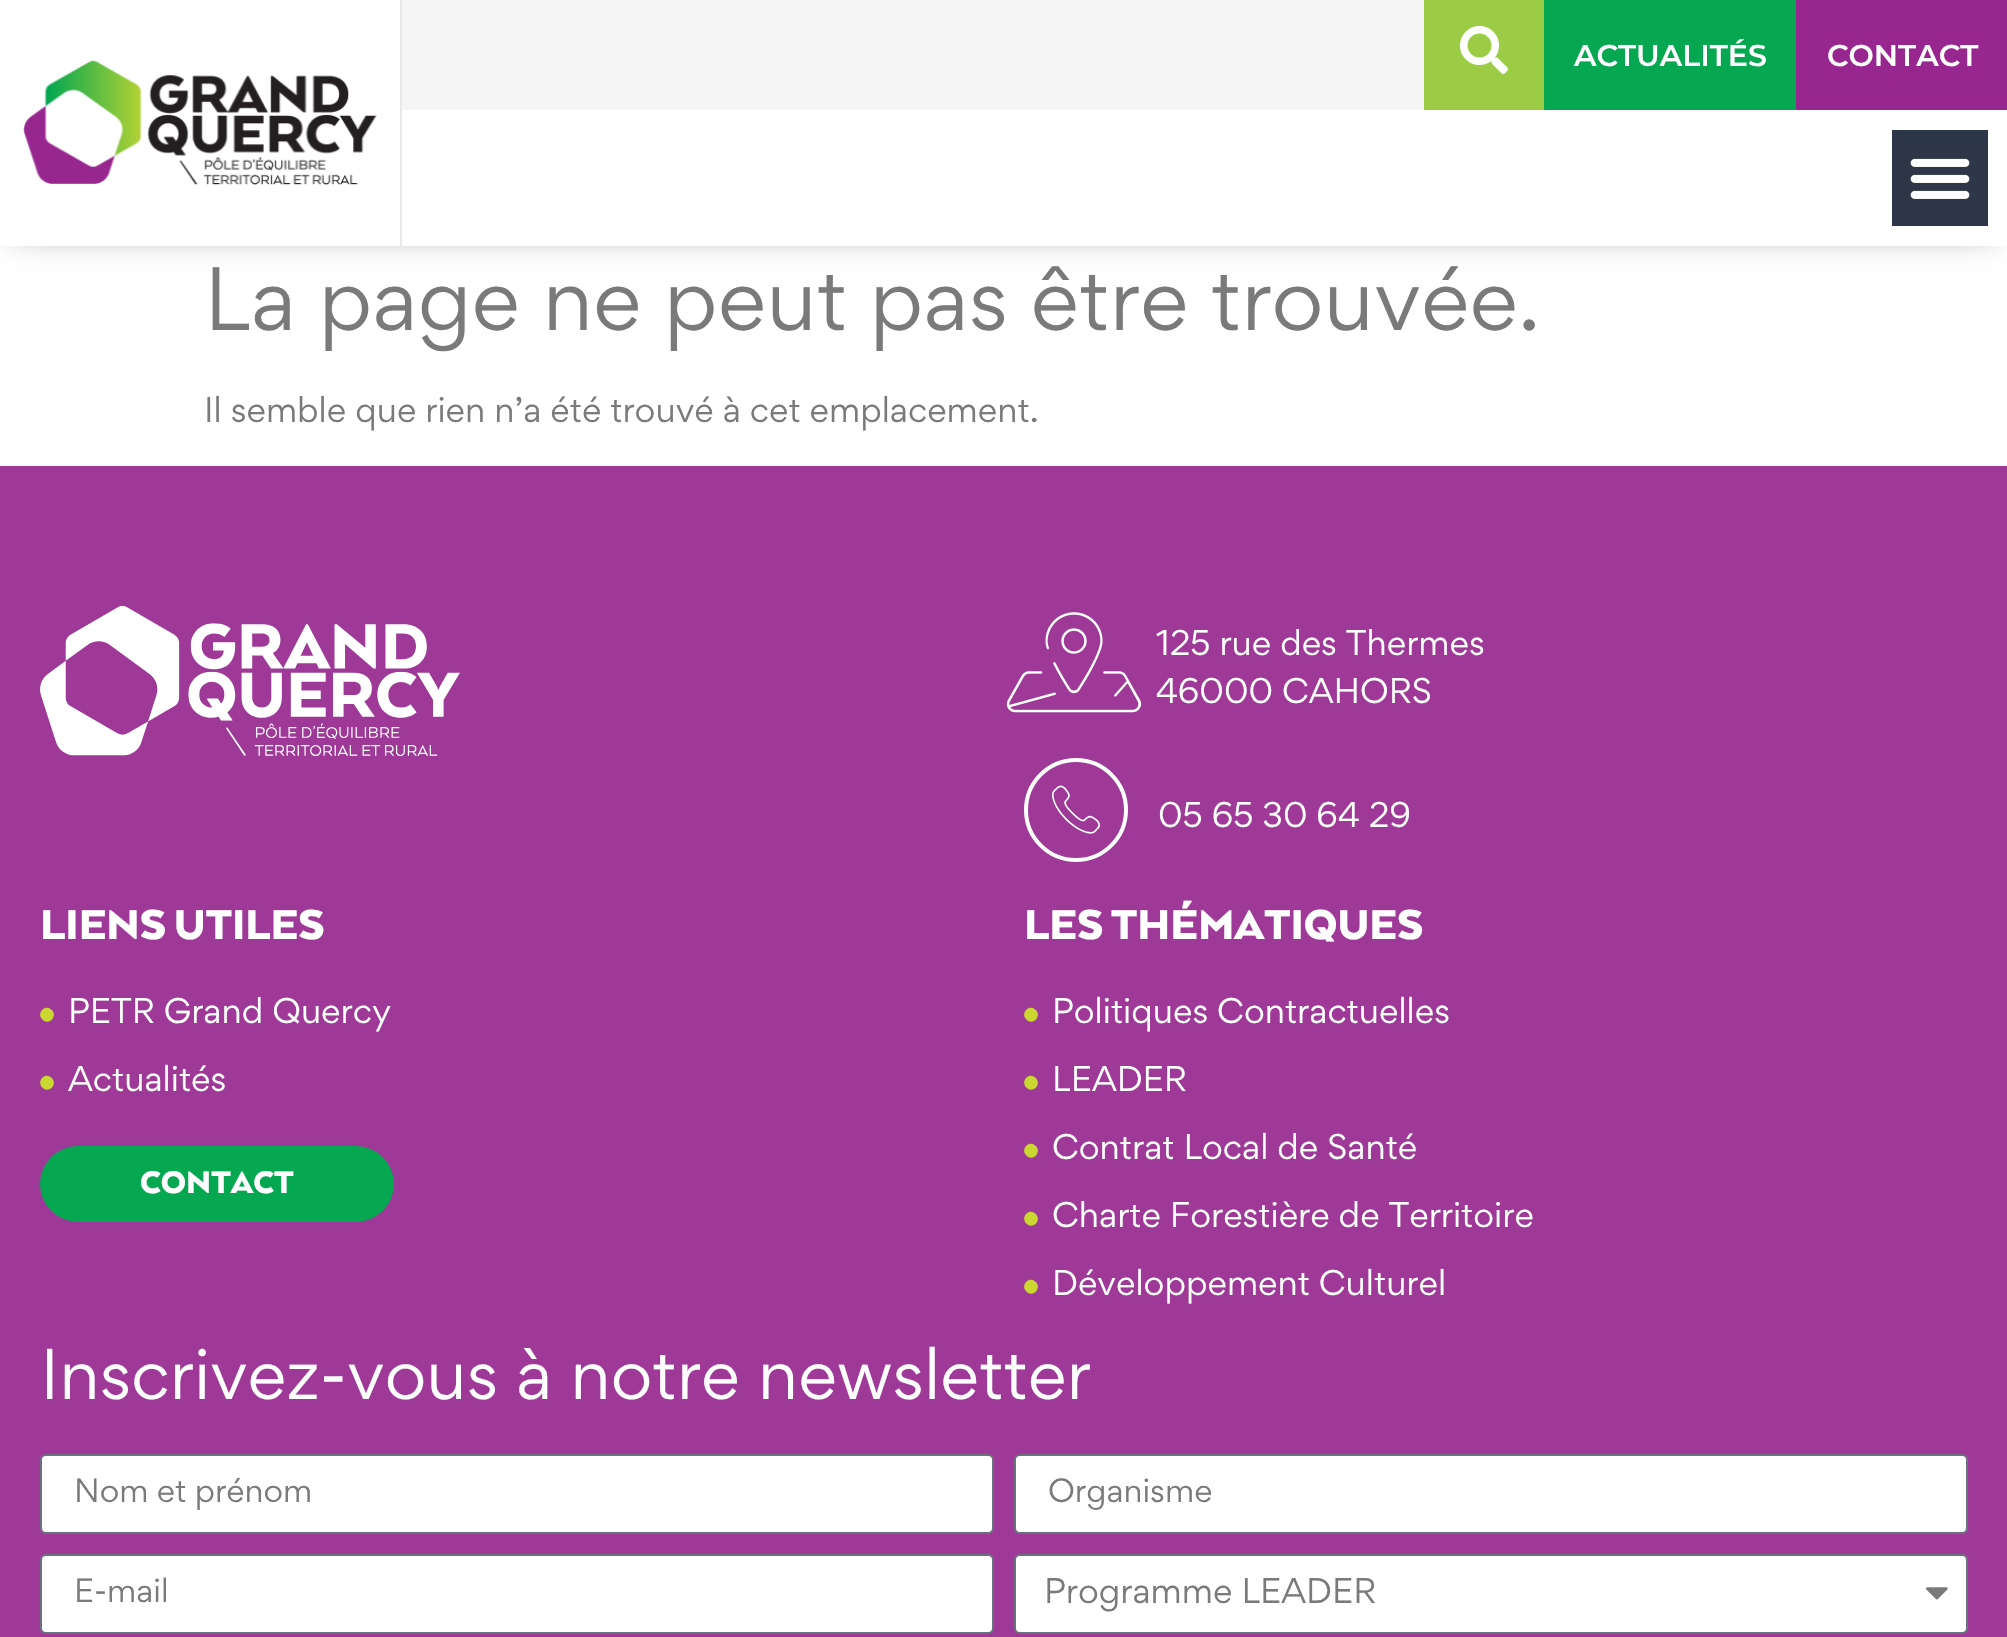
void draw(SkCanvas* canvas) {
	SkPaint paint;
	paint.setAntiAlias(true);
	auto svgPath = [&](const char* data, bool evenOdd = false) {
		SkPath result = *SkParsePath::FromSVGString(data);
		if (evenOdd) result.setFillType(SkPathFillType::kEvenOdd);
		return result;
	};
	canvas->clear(0xffffffff);
	paint.setColor(0x80000000);
	paint.setMaskFilter(SkMaskFilter::MakeBlur(kNormal_SkBlurStyle, 15));
	canvas->drawRect(SkRect::MakeXYWH(14, 14, 1980, 218), paint);
	paint.setMaskFilter(nullptr);
	paint.setColor(0xfff5f5f5);
	canvas->drawRect(SkRect::MakeXYWH(402, 0, 1022, 110), paint);
	paint.setColor(0xffffffff);
	canvas->drawRect(SkRect::MakeXYWH(0, 0, 400, 246), paint);
	paint.setColor(0xffe8e8e8);
	canvas->drawRect(SkRect::MakeXYWH(400, 0, 2, 246), paint);
	canvas->drawImageRect(SkImages::DeferredFromEncodedData(SkData::MakeFromFileName("img1.png")), SkRect::MakeXYWH(23, 60, 354, 125), SkSamplingOptions());
	paint.setColor(0xff9ccc45);
	canvas->drawRect(SkRect::MakeXYWH(1424, 0, 120, 110), paint);
	canvas->drawImageRect(SkImages::DeferredFromEncodedData(SkData::MakeFromFileName("img2.png")), SkRect::MakeXYWH(1460, 26, 48, 48), SkSamplingOptions());
	paint.setColor(0xff05a850);
	canvas->drawRect(SkRect::MakeXYWH(1544, 0, 252, 110), paint);
	SkFont f1(fontMgr->matchFamilyStyle("Montserrat", SkFontStyle(600, SkFontStyle::kNormal_Width, SkFontStyle::kUpright_Slant)), 30);
	f1.setSubpixel(true);
	paint.setColor(0xffffffff);
	canvas->drawString("ACTUALITÉS", 1574, 66, f1, paint);
	paint.setColor(0xff97268f);
	canvas->drawRect(SkRect::MakeXYWH(1796, 0, 211, 110), paint);
	paint.setColor(0xffffffff);
	canvas->drawString("CONTACT", 1827, 66, f1, paint);
	canvas->drawRect(SkRect::MakeXYWH(402, 110, 1605, 136), paint);
	paint.setColor(0xff2d3748);
	canvas->drawRect(SkRect::MakeXYWH(1892, 130, 96, 96), paint);
	canvas->drawImageRect(SkImages::DeferredFromEncodedData(SkData::MakeFromFileName("img3.png")), SkRect::MakeXYWH(1910, 158, 60, 41), SkSamplingOptions());
	SkFont f2(fontMgr->matchFamilyStyle("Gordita", SkFontStyle::Normal()), 80);
	f2.setSubpixel(true);
	paint.setColor(0xff7a7a7a);
	canvas->drawString("La page ne peut pas être trouvée.", 204, 330, f2, paint);
	SkFont f3(fontMgr->matchFamilyStyle("Gordita", SkFontStyle::Normal()), 32);
	f3.setSubpixel(true);
	canvas->drawString("Il semble que rien n’a été trouvé à cet emplacement.", 204, 422, f3, paint);
	paint.setColor(0xff9e3997);
	canvas->drawRect(SkRect::MakeXYWH(0, 466, 2007, 1171), paint);
	canvas->drawImageRect(SkImages::DeferredFromEncodedData(SkData::MakeFromFileName("img4.png")), SkRect::MakeXYWH(40, 606, 420, 150), SkSamplingOptions());
	canvas->drawImageRect(SkImages::DeferredFromEncodedData(SkData::MakeFromFileName("img5.png")), SkRect::MakeXYWH(1006, 612, 136, 101), SkSamplingOptions());
	paint.setColor(0xffffffff);
	canvas->drawString("125 rue des Thermes", 1156, 655, f3, paint);
	canvas->drawString("46000 CAHORS", 1156, 703, f3, paint);
	paint.setStroke(true);
	paint.setStrokeWidth(4);
	canvas->drawCircle(1076, 810, 50, paint);
	canvas->drawImageRect(SkImages::DeferredFromEncodedData(SkData::MakeFromFileName("img6.png")), SkRect::MakeXYWH(1052, 785, 48, 49), SkSamplingOptions());
	paint.setStroke(false);
	canvas->drawString("05 65 30 64 29", 1158, 827, f3, paint);
	SkFont f4(fontMgr->matchFamilyStyle("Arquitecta", SkFontStyle(900, SkFontStyle::kNormal_Width, SkFontStyle::kUpright_Slant)), 48);
	f4.setSubpixel(true);
	canvas->drawString("LIENS UTILES", 40, 939, f4, paint);
	paint.setColor(0xffc9d730);
	canvas->drawPath(svgPath("M42 1010C48.5 1003.5 58 1013 52 1019.5C45.5 1026 36 1016.5 42 1010Z"), paint);
	paint.setColor(0xffffffff);
	canvas->drawString("PETR Grand Quercy", 68, 1023, f3, paint);
	paint.setColor(0xffc9d730);
	canvas->drawPath(svgPath("M42 1078C48.5 1071.5 58 1081 52 1087.5C45.5 1094 36 1084.5 42 1078Z"), paint);
	paint.setColor(0xffffffff);
	canvas->drawString("Actualités", 68, 1091, f3, paint);
	paint.setColor(0xff05a850);
	canvas->drawRoundRect(SkRect::MakeXYWH(40, 1146, 354, 76), 38, 38, paint);
	SkFont f5(fontMgr->matchFamilyStyle("Arquitecta", SkFontStyle(900, SkFontStyle::kNormal_Width, SkFontStyle::kUpright_Slant)), 36);
	f5.setSubpixel(true);
	paint.setColor(0xffffffff);
	canvas->drawString("CONTACT", 140, 1193, f5, paint);
	canvas->drawString("LES THÉMATIQUES", 1024, 939, f4, paint);
	paint.setColor(0xffc9d730);
	canvas->drawPath(svgPath("M1026 1010C1032.5 1003.5 1042 1013 1036 1019.5C1029.5 1026 1020 1016.5 1026 1010Z"), paint);
	paint.setColor(0xffffffff);
	canvas->drawString("Politiques Contractuelles", 1052, 1023, f3, paint);
	paint.setColor(0xffc9d730);
	canvas->drawPath(svgPath("M1026 1078C1032.5 1071.5 1042 1081 1036 1087.5C1029.5 1094 1020 1084.5 1026 1078Z"), paint);
	paint.setColor(0xffffffff);
	canvas->drawString("LEADER", 1052, 1091, f3, paint);
	paint.setColor(0xffc9d730);
	canvas->drawPath(svgPath("M1026 1146C1032.5 1139.5 1042 1149 1036 1155.5C1029.5 1162 1020 1152.5 1026 1146Z"), paint);
	paint.setColor(0xffffffff);
	canvas->drawString("Contrat Local de Santé", 1052, 1159, f3, paint);
	paint.setColor(0xffc9d730);
	canvas->drawPath(svgPath("M1026 1214C1032.5 1207.5 1042 1217 1036 1223.5C1029.5 1230 1020 1220.5 1026 1214Z"), paint);
	paint.setColor(0xffffffff);
	canvas->drawString("Charte Forestière de Territoire", 1052, 1227, f3, paint);
	paint.setColor(0xffc9d730);
	canvas->drawPath(svgPath("M1026 1282C1032.5 1275.5 1042 1285 1036 1291.5C1029.5 1298 1020 1288.5 1026 1282Z"), paint);
	paint.setColor(0xffffffff);
	canvas->drawString("Développement Culturel", 1052, 1295, f3, paint);
	SkFont f6(fontMgr->matchFamilyStyle("Gordita", SkFontStyle::Normal()), 64);
	f6.setSubpixel(true);
	canvas->drawString("Inscrivez-vous à notre newsletter", 40, 1399, f6, paint);
	canvas->drawRoundRect(SkRect::MakeXYWH(41, 1455, 952, 78), 5, 5, paint);
	paint.setStroke(true);
	paint.setStrokeWidth(2);
	paint.setColor(0xff69727d);
	canvas->drawRoundRect(SkRect::MakeXYWH(41, 1455, 952, 78), 5, 5, paint);
	SkFont f7(fontMgr->matchFamilyStyle("Gordita", SkFontStyle::Normal()), 30);
	f7.setSubpixel(true);
	paint.setStroke(false);
	paint.setColor(0xff7a7a7a);
	canvas->drawString("Nom et prénom", 74, 1502, f7, paint);
	paint.setColor(0xffffffff);
	canvas->drawRoundRect(SkRect::MakeXYWH(1015, 1455, 952, 78), 5, 5, paint);
	paint.setStroke(true);
	paint.setColor(0xff69727d);
	canvas->drawRoundRect(SkRect::MakeXYWH(1015, 1455, 952, 78), 5, 5, paint);
	paint.setStroke(false);
	paint.setColor(0xff7a7a7a);
	canvas->drawString("Organisme", 1048, 1502, f7, paint);
	paint.setColor(0xffffffff);
	canvas->drawRoundRect(SkRect::MakeXYWH(41, 1555, 952, 78), 5, 5, paint);
	paint.setStroke(true);
	paint.setColor(0xff69727d);
	canvas->drawRoundRect(SkRect::MakeXYWH(41, 1555, 952, 78), 5, 5, paint);
	paint.setStroke(false);
	paint.setColor(0xff7a7a7a);
	canvas->drawString("E-mail", 74, 1602, f7, paint);
	paint.setColor(0xffffffff);
	canvas->drawRoundRect(SkRect::MakeXYWH(1015, 1555, 952, 78), 5, 5, paint);
	paint.setStroke(true);
	paint.setColor(0xff69727d);
	canvas->drawRoundRect(SkRect::MakeXYWH(1015, 1555, 952, 78), 5, 5, paint);
	paint.setStroke(false);
	paint.setColor(0xff7a7a7a);
	canvas->drawString("Programme LEADER", 1044, 1603, f3, paint);
	canvas->drawImageRect(SkImages::DeferredFromEncodedData(SkData::MakeFromFileName("img7.png")), SkRect::MakeXYWH(1926, 1587, 22, 13), SkSamplingOptions());
}
